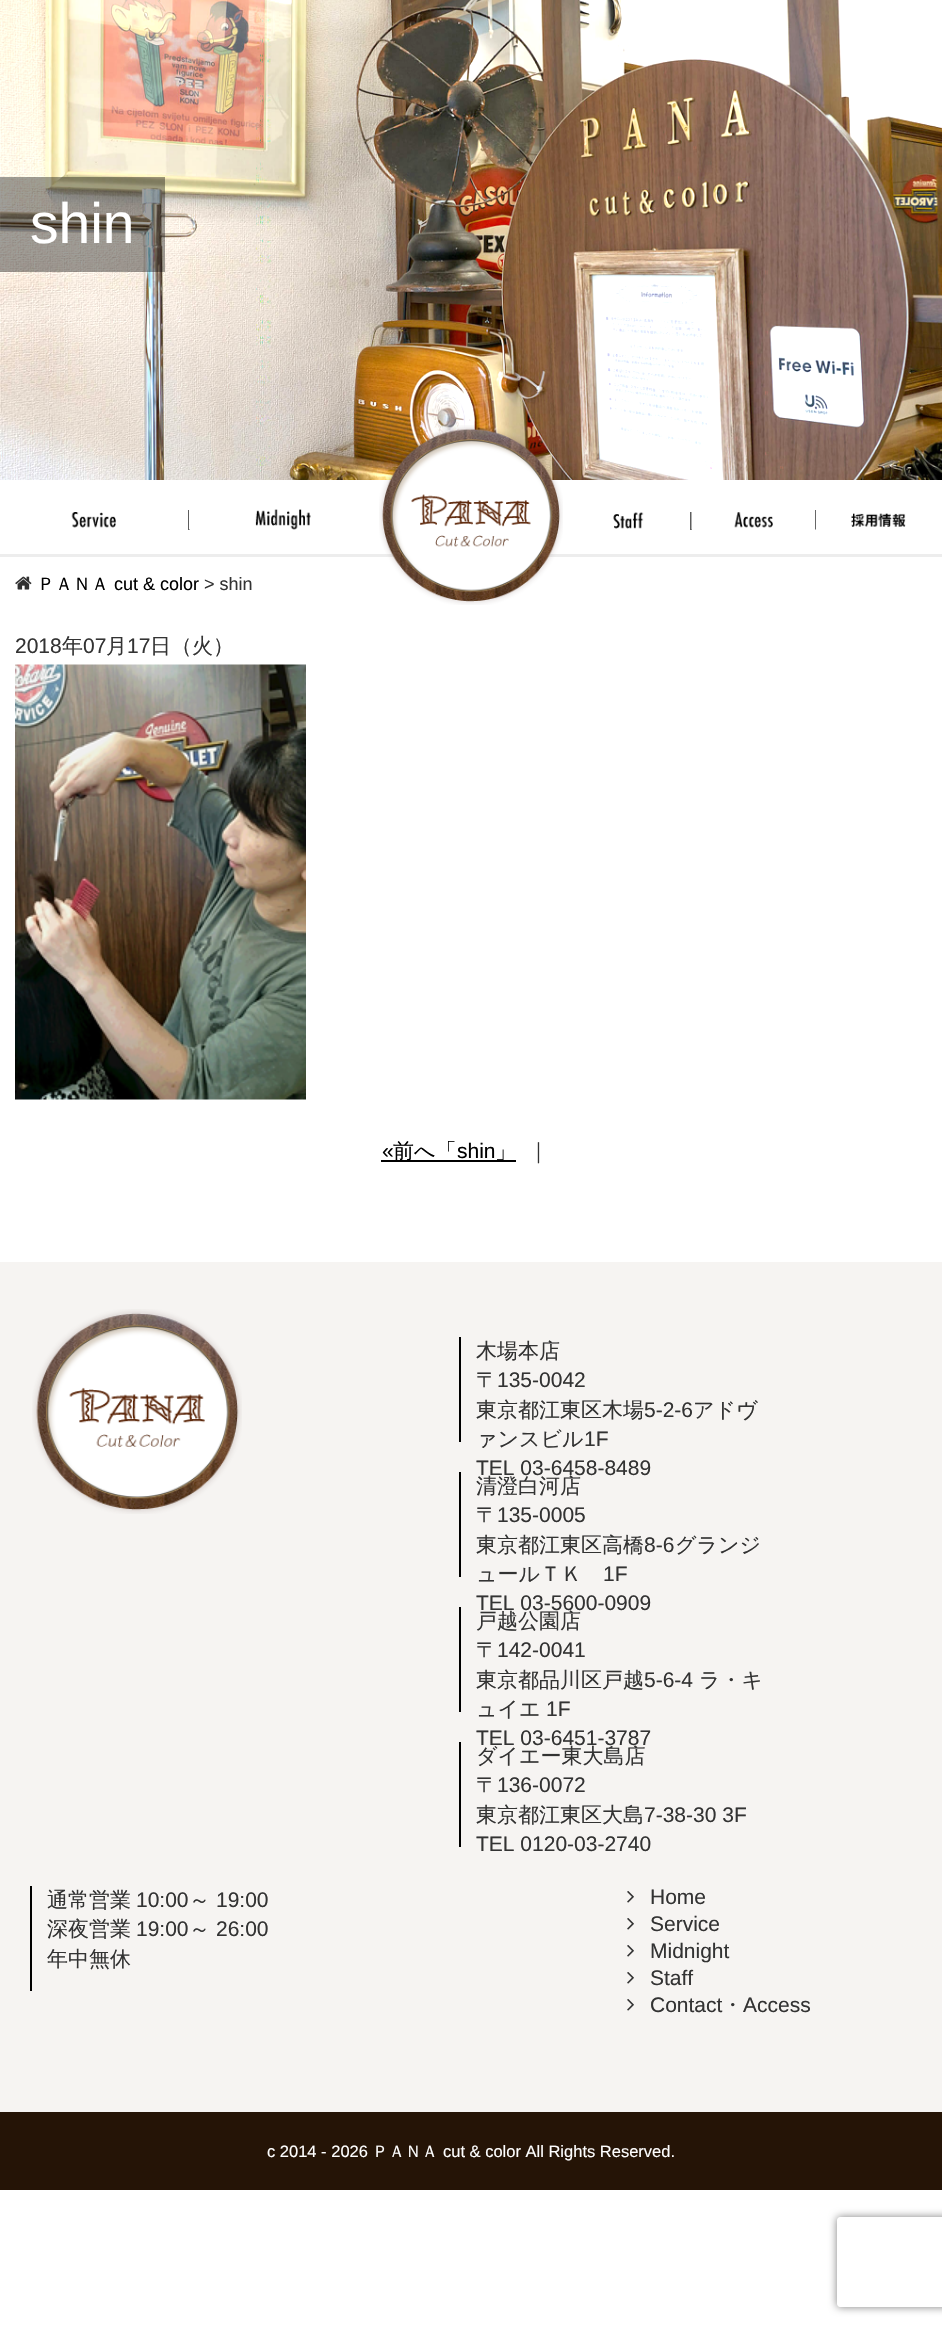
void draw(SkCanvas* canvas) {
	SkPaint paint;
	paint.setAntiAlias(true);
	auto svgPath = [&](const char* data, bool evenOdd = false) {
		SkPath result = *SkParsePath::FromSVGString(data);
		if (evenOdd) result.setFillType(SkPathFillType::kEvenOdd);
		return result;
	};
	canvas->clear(0xffffffff);
	canvas->drawImageRect(SkImages::DeferredFromEncodedData(SkData::MakeFromFileName("img1.png")), SkRect::MakeXYWH(0, 0, 942, 480), SkSamplingOptions());
	paint.setColor(0x61000000);
	canvas->drawRect(SkRect::MakeXYWH(0, 177, 165, 95), paint);
	SkFont f1(fontMgr->matchFamilyStyle("Liberation Sans", SkFontStyle::Normal()), 57);
	f1.setSubpixel(true);
	paint.setColor(0xffffffff);
	canvas->drawString("shin", 30, 243, f1, paint);
	paint.setColor(0xffededed);
	canvas->drawRect(SkRect::MakeXYWH(0, 554, 942, 3), paint);
	canvas->drawImageRect(SkImages::DeferredFromEncodedData(SkData::MakeFromFileName("img2.png")), SkRect::MakeXYWH(71, 512, 45, 16), SkSamplingOptions());
	paint.setColor(0xff5d5d5d);
	canvas->drawRect(SkRect::MakeXYWH(188, 510, 2, 20), paint);
	canvas->drawImageRect(SkImages::DeferredFromEncodedData(SkData::MakeFromFileName("img3.png")), SkRect::MakeXYWH(189, 509, 122, 21), SkSamplingOptions());
	canvas->drawImageRect(SkImages::DeferredFromEncodedData(SkData::MakeFromFileName("img4.png")), SkRect::MakeXYWH(379, 425, 184, 180), SkSamplingOptions());
	canvas->drawImageRect(SkImages::DeferredFromEncodedData(SkData::MakeFromFileName("img5.png")), SkRect::MakeXYWH(613, 512, 31, 17), SkSamplingOptions());
	canvas->drawRect(SkRect::MakeXYWH(690, 512, 2, 18), paint);
	canvas->drawImageRect(SkImages::DeferredFromEncodedData(SkData::MakeFromFileName("img6.png")), SkRect::MakeXYWH(691, 510, 125, 20), SkSamplingOptions());
	canvas->drawImageRect(SkImages::DeferredFromEncodedData(SkData::MakeFromFileName("img7.png")), SkRect::MakeXYWH(851, 513, 55, 14), SkSamplingOptions());
	canvas->drawImageRect(SkImages::DeferredFromEncodedData(SkData::MakeFromFileName("img8.png")), SkRect::MakeXYWH(15, 576, 17, 14), SkSamplingOptions());
	SkFont f2(fontMgr->matchFamilyStyle("WenQuanYi Zen Hei", SkFontStyle(500, SkFontStyle::kNormal_Width, SkFontStyle::kUpright_Slant)), 18);
	f2.setSubpixel(true);
	paint.setColor(0xff000000);
	canvas->drawString("ＰＡＮＡ", 37, 590, f2, paint);
	SkFont f3(fontMgr->matchFamilyStyle("Liberation Sans", SkFontStyle::Normal()), 18);
	f3.setSubpixel(true);
	canvas->drawString("cut & color", 114, 590, f3, paint);
	paint.setColor(0xff333333);
	canvas->drawString("> shin", 204, 590, f3, paint);
	SkFont f4(fontMgr->matchFamilyStyle("Liberation Sans", SkFontStyle::Normal()), 21);
	f4.setSubpixel(true);
	canvas->drawString("2018", 15, 653, f4, paint);
	SkFont f5(fontMgr->matchFamilyStyle("WenQuanYi Zen Hei", SkFontStyle(500, SkFontStyle::kNormal_Width, SkFontStyle::kUpright_Slant)), 21);
	f5.setSubpixel(true);
	canvas->drawString("年", 62, 653, f5, paint);
	canvas->drawString("07", 83, 653, f4, paint);
	canvas->drawString("月", 106, 653, f5, paint);
	canvas->drawString("17", 127, 653, f4, paint);
	canvas->drawString("日（火）", 150, 653, f5, paint);
	canvas->drawImageRect(SkImages::DeferredFromEncodedData(SkData::MakeFromFileName("img9.png")), SkRect::MakeXYWH(15, 664, 291, 436), SkSamplingOptions());
	paint.setColor(0xff000000);
	canvas->drawString("«", 382, 1158, f4, paint);
	canvas->drawRect(SkRect::MakeXYWH(381, 1160, 135, 2), paint);
	canvas->drawString("前へ「", 393, 1158, f5, paint);
	canvas->drawString("shin", 457, 1158, f4, paint);
	canvas->drawString("」", 495, 1158, f5, paint);
	paint.setColor(0xff333333);
	canvas->drawString("｜", 528, 1158, f5, paint);
	paint.setColor(0xfff6f4f2);
	canvas->drawRect(SkRect::MakeXYWH(0, 1262, 942, 850), paint);
	canvas->drawImageRect(SkImages::DeferredFromEncodedData(SkData::MakeFromFileName("img10.png")), SkRect::MakeXYWH(32, 1309, 210, 205), SkSamplingOptions());
	paint.setColor(0xff000000);
	canvas->drawRect(SkRect::MakeXYWH(459, 1337, 2, 105), paint);
	paint.setColor(0xff333333);
	canvas->drawString("木場本店", 476, 1358, f5, paint);
	canvas->drawString("〒", 476, 1387, f5, paint);
	canvas->drawString("135-0042", 497, 1387, f4, paint);
	canvas->drawString("東京都江東区木場", 476, 1417, f5, paint);
	canvas->drawString("5-2-6", 644, 1417, f4, paint);
	canvas->drawString("アドヴ", 693, 1417, f5, paint);
	canvas->drawString("ァンスビル", 476, 1446, f5, paint);
	canvas->drawString("1F", 584, 1446, f4, paint);
	canvas->drawString("TEL 03-6458-8489", 476, 1475, f4, paint);
	paint.setColor(0xff000000);
	canvas->drawRect(SkRect::MakeXYWH(459, 1472, 2, 105), paint);
	paint.setColor(0xff333333);
	canvas->drawString("清澄白河店", 476, 1493, f5, paint);
	canvas->drawString("〒", 476, 1522, f5, paint);
	canvas->drawString("135-0005", 497, 1522, f4, paint);
	canvas->drawString("東京都江東区高橋", 476, 1552, f5, paint);
	canvas->drawString("8-6", 644, 1552, f4, paint);
	canvas->drawString("グランジ", 675, 1552, f5, paint);
	canvas->drawString("ュールＴＫ", 476, 1581, f5, paint);
	canvas->drawString("1F", 603, 1581, f4, paint);
	canvas->drawString("TEL 03-5600-0909", 476, 1610, f4, paint);
	paint.setColor(0xff000000);
	canvas->drawRect(SkRect::MakeXYWH(459, 1607, 2, 105), paint);
	paint.setColor(0xff333333);
	canvas->drawString("戸越公園店", 476, 1628, f5, paint);
	canvas->drawString("〒", 476, 1657, f5, paint);
	canvas->drawString("142-0041", 497, 1657, f4, paint);
	canvas->drawString("東京都品川区戸越", 476, 1687, f5, paint);
	canvas->drawString("5-6-4", 644, 1687, f4, paint);
	canvas->drawString("ラ・キ", 699, 1687, f5, paint);
	canvas->drawString("ュイエ", 476, 1716, f5, paint);
	canvas->drawString("1F", 546, 1716, f4, paint);
	canvas->drawString("TEL 03-6451-3787", 476, 1745, f4, paint);
	paint.setColor(0xff000000);
	canvas->drawRect(SkRect::MakeXYWH(459, 1742, 2, 105), paint);
	paint.setColor(0xff333333);
	canvas->drawString("ダイエー東大島店", 476, 1763, f5, paint);
	canvas->drawString("〒", 476, 1792, f5, paint);
	canvas->drawString("136-0072", 497, 1792, f4, paint);
	canvas->drawString("東京都江東区大島", 476, 1822, f5, paint);
	canvas->drawString("7-38-30 3F", 644, 1822, f4, paint);
	canvas->drawString("TEL 0120-03-2740", 476, 1851, f4, paint);
	paint.setColor(0xff000000);
	canvas->drawRect(SkRect::MakeXYWH(30, 1886, 2, 105), paint);
	paint.setColor(0xff333333);
	canvas->drawString("通常営業", 47, 1907, f5, paint);
	canvas->drawString("10:00", 136, 1907, f4, paint);
	canvas->drawString("～", 189, 1907, f5, paint);
	canvas->drawString("19:00", 216, 1907, f4, paint);
	canvas->drawString("深夜営業", 47, 1936, f5, paint);
	canvas->drawString("19:00", 136, 1936, f4, paint);
	canvas->drawString("～", 189, 1936, f5, paint);
	canvas->drawString("26:00", 216, 1936, f4, paint);
	canvas->drawString("年中無休", 47, 1966, f5, paint);
	canvas->drawImageRect(SkImages::DeferredFromEncodedData(SkData::MakeFromFileName("img11.png")), SkRect::MakeXYWH(627, 1891, 7, 12), SkSamplingOptions());
	canvas->drawString("Home", 650, 1904, f4, paint);
	canvas->drawImageRect(SkImages::DeferredFromEncodedData(SkData::MakeFromFileName("img11.png")), SkRect::MakeXYWH(627, 1918, 7, 12), SkSamplingOptions());
	canvas->drawString("Service", 650, 1931, f4, paint);
	canvas->drawImageRect(SkImages::DeferredFromEncodedData(SkData::MakeFromFileName("img11.png")), SkRect::MakeXYWH(627, 1945, 7, 12), SkSamplingOptions());
	canvas->drawString("Midnight", 650, 1958, f4, paint);
	canvas->drawImageRect(SkImages::DeferredFromEncodedData(SkData::MakeFromFileName("img11.png")), SkRect::MakeXYWH(627, 1972, 7, 12), SkSamplingOptions());
	canvas->drawString("Staff", 650, 1985, f4, paint);
	canvas->drawImageRect(SkImages::DeferredFromEncodedData(SkData::MakeFromFileName("img11.png")), SkRect::MakeXYWH(627, 1999, 7, 12), SkSamplingOptions());
	canvas->drawString("Contact", 650, 2012, f4, paint);
	canvas->drawString("・", 722, 2012, f5, paint);
	canvas->drawString("Access", 743, 2012, f4, paint);
	paint.setColor(0xff251406);
	canvas->drawRect(SkRect::MakeXYWH(0, 2112, 942, 78), paint);
	SkFont f6(fontMgr->matchFamilyStyle("Liberation Sans", SkFontStyle::Normal()), 16.5);
	f6.setSubpixel(true);
	paint.setColor(0xffffffff);
	canvas->drawString("c 2014 - 2026", 267, 2157, f6, paint);
	SkFont f7(fontMgr->matchFamilyStyle("WenQuanYi Zen Hei", SkFontStyle(500, SkFontStyle::kNormal_Width, SkFontStyle::kUpright_Slant)), 16.5);
	f7.setSubpixel(true);
	canvas->drawString("ＰＡＮＡ", 372, 2157, f7, paint);
	canvas->drawString("cut & color All Rights Reserved.", 443, 2157, f6, paint);
	canvas->save();
	canvas->clipPath(svgPath("M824 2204H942V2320H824ZM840 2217H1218C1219.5 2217 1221 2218.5 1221 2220V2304C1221 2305.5 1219.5 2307 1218 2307H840C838.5 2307 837 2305.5 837 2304V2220C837 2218.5 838.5 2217 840 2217Z", true), true);
	paint.setColor(0xff808080);
	paint.setMaskFilter(SkMaskFilter::MakeBlur(kNormal_SkBlurStyle, 4));
	canvas->drawRoundRect(SkRect::MakeXYWH(837, 2217, 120, 90), 3, 3, paint);
	paint.setMaskFilter(nullptr);
	canvas->restore();
}
